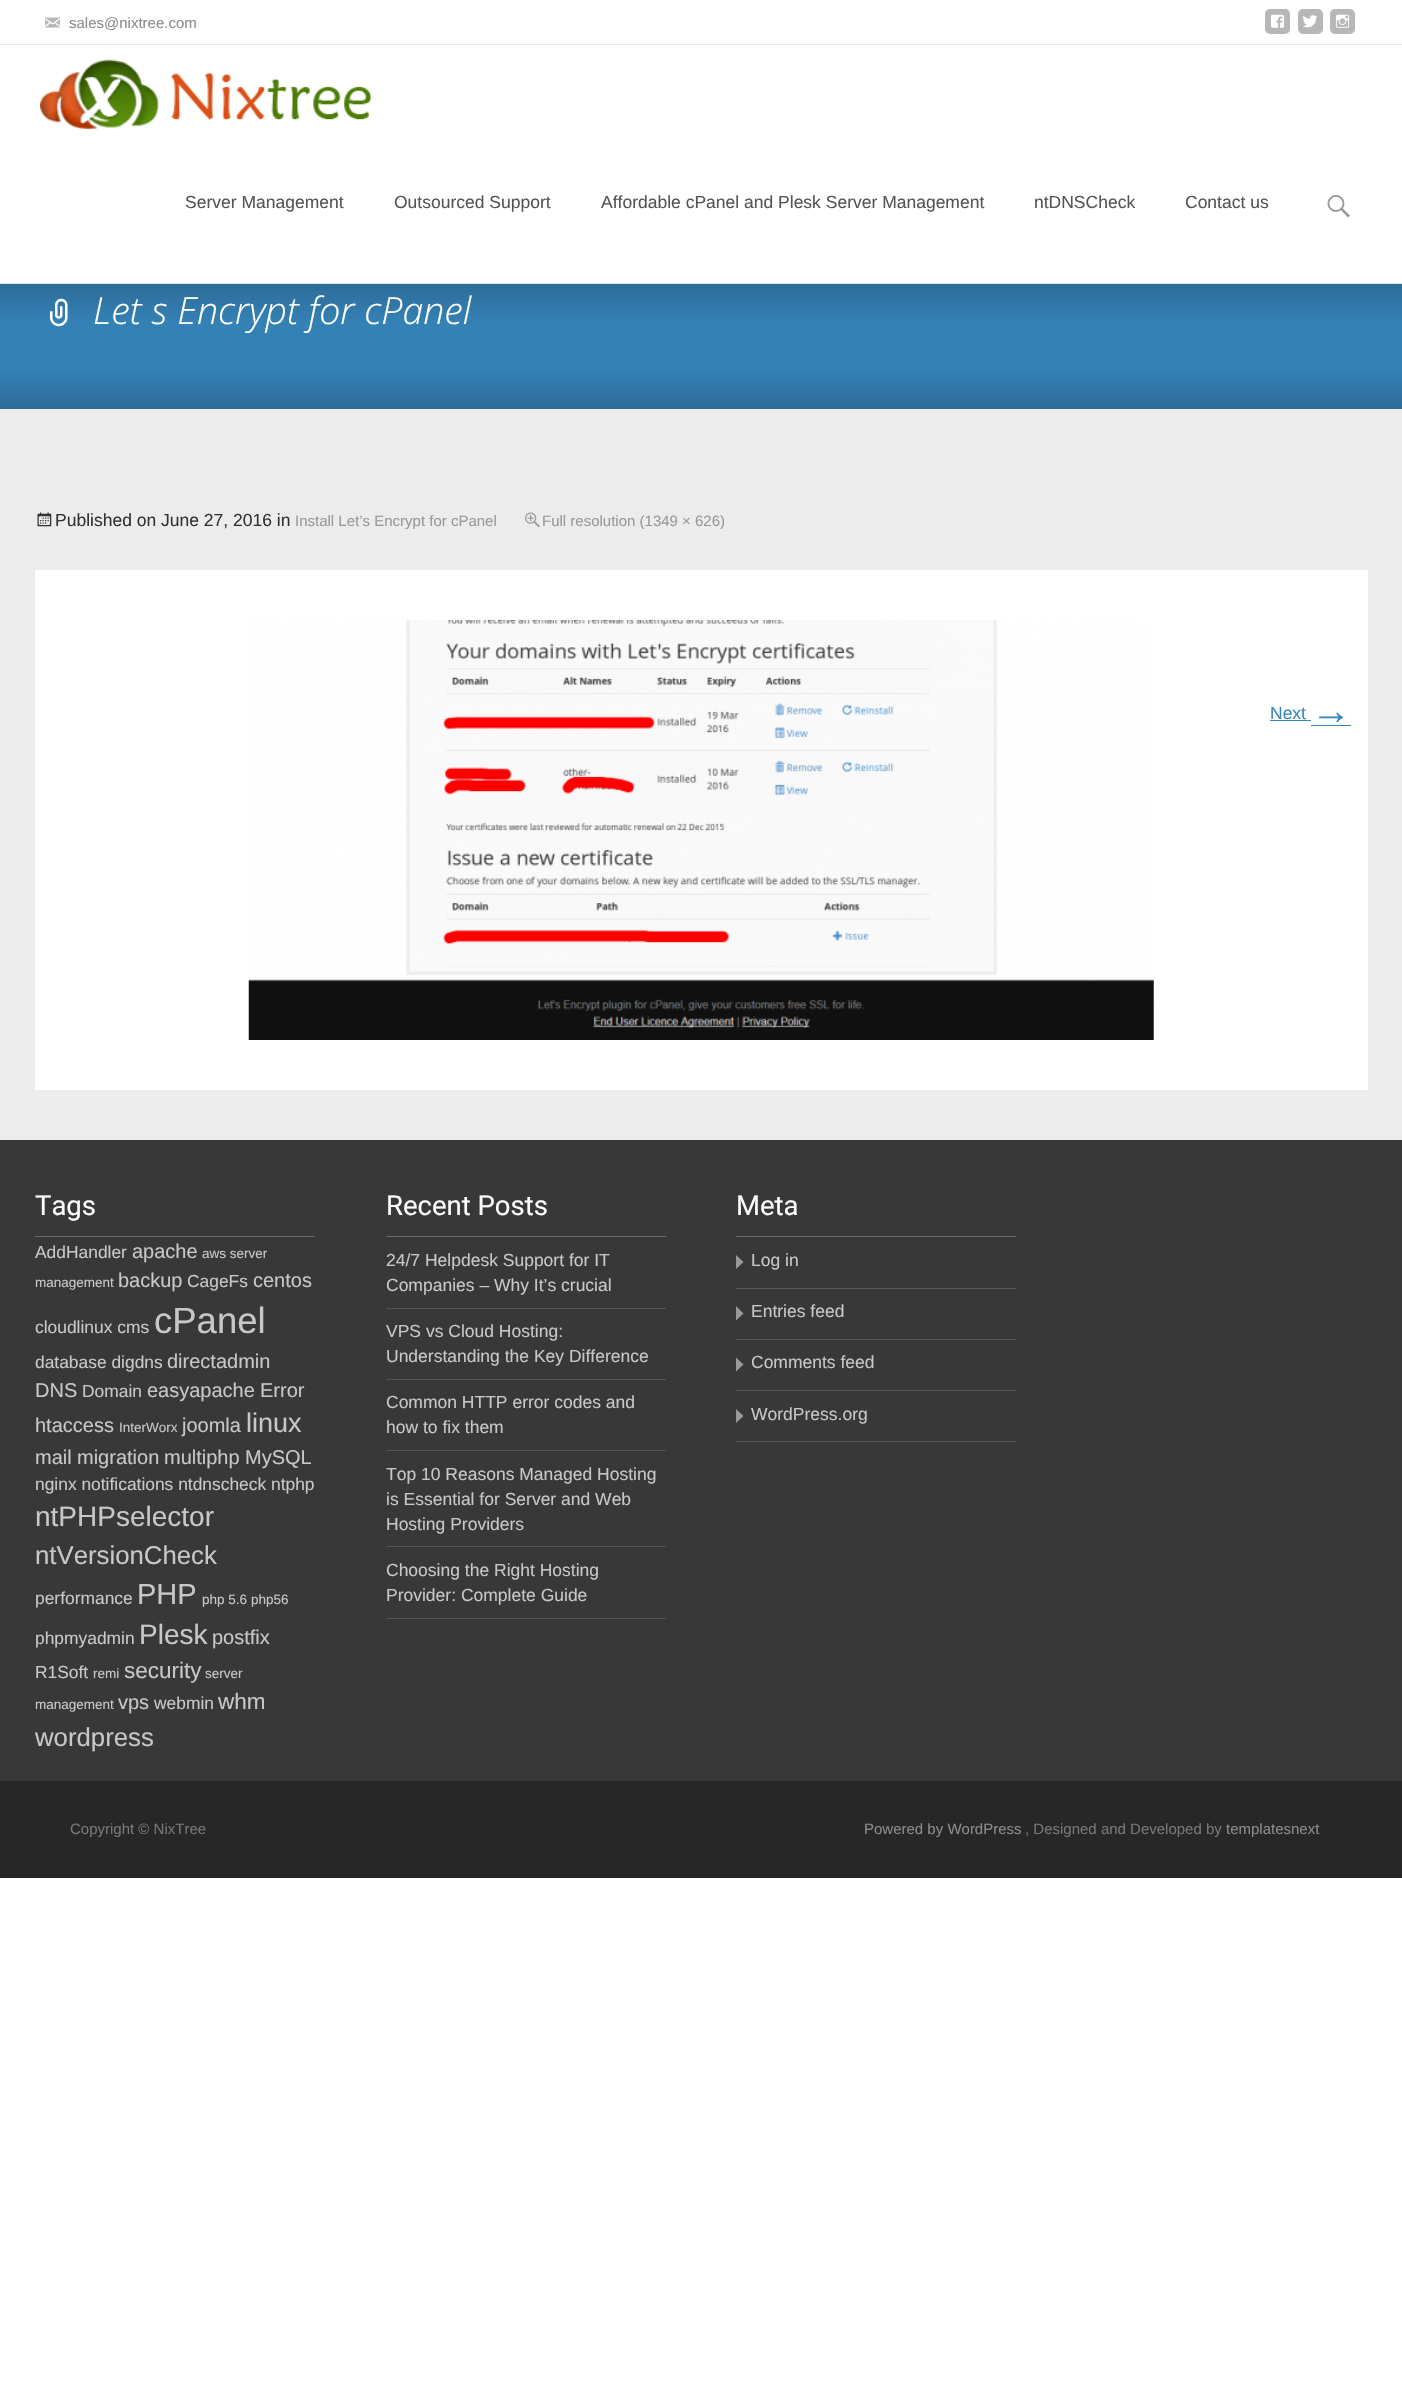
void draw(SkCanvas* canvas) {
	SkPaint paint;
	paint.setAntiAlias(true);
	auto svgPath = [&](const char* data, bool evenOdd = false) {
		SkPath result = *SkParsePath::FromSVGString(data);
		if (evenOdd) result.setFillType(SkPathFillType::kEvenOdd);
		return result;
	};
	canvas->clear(0xffffffff);
	paint.setColor(0xffe7e7e7);
	canvas->drawRect(SkRect::MakeXYWH(0, 44, 1402, 1), paint);
	canvas->drawImageRect(SkImages::DeferredFromEncodedData(SkData::MakeFromFileName("img1.png")), SkRect::MakeXYWH(45, 17, 15, 11), SkSamplingOptions());
	SkFont f1(fontMgr->matchFamilyStyle("Liberation Sans", SkFontStyle::Normal()), 15);
	f1.setSubpixel(true);
	paint.setColor(0xff8b8b8b);
	canvas->drawString("sales@nixtree.com", 69, 28, f1, paint);
	paint.setColor(0xffb7b7b7);
	canvas->drawRoundRect(SkRect::MakeXYWH(1265, 9, 25, 25), 5, 5, paint);
	canvas->drawImageRect(SkImages::DeferredFromEncodedData(SkData::MakeFromFileName("img2.png")), SkRect::MakeXYWH(1270, 14, 15, 14), SkSamplingOptions());
	canvas->drawRoundRect(SkRect::MakeXYWH(1298, 9, 25, 25), 5, 5, paint);
	canvas->drawImageRect(SkImages::DeferredFromEncodedData(SkData::MakeFromFileName("img3.png")), SkRect::MakeXYWH(1303, 15, 15, 13), SkSamplingOptions());
	canvas->drawRoundRect(SkRect::MakeXYWH(1330, 9, 25, 25), 5, 5, paint);
	canvas->drawImageRect(SkImages::DeferredFromEncodedData(SkData::MakeFromFileName("img4.png")), SkRect::MakeXYWH(1335, 14, 15, 14), SkSamplingOptions());
	paint.setColor(0xffe7e7e7);
	canvas->drawRect(SkRect::MakeXYWH(0, 283, 1402, 1), paint);
	canvas->drawImageRect(SkImages::DeferredFromEncodedData(SkData::MakeFromFileName("img5.png")), SkRect::MakeXYWH(40, 59, 332, 71), SkSamplingOptions());
	SkFont f2(fontMgr->matchFamilyStyle("Liberation Sans", SkFontStyle::Normal()), 17.5);
	f2.setSubpixel(true);
	paint.setColor(0xff545454);
	canvas->drawString("Server Management", 185, 208, f2, paint);
	canvas->drawString("Outsourced Support", 394, 208, f2, paint);
	canvas->drawString("Affordable cPanel and Plesk Server Management", 601, 208, f2, paint);
	canvas->drawString("ntDNSCheck", 1034, 208, f2, paint);
	canvas->drawString("Contact us", 1185, 208, f2, paint);
	canvas->drawImageRect(SkImages::DeferredFromEncodedData(SkData::MakeFromFileName("img6.png")), SkRect::MakeXYWH(1327, 195, 23, 23), SkSamplingOptions());
	{
		const SkColor colors[] = {0xff2c6c98, 0xff3481b5, 0xff3481b5, 0xff2c6c98};
		const float stops[] = {0, 0.3, 0.69, 1};
		const SkPoint ends[] = {{701, 284}, {701, 409}};
		paint.setShader(SkGradientShader::MakeLinear(ends, colors, stops, 4, SkTileMode::kClamp));
		paint.setAlpha(255);
	}
	canvas->drawRect(SkRect::MakeXYWH(0, 284, 1402, 125), paint);
	canvas->drawImageRect(SkImages::DeferredFromEncodedData(SkData::MakeFromFileName("img7.png")), SkRect::MakeXYWH(50, 298, 18, 29), SkSamplingOptions());
	SkFont f3(fontMgr->matchFamilyStyle("Open Sans", SkFontStyle(300, SkFontStyle::kNormal_Width, SkFontStyle::kItalic_Slant)), 37.5);
	f3.setSubpixel(true);
	paint.setShader(nullptr);
	paint.setColor(0xffffffff);
	canvas->drawString("Let s Encrypt for cPanel", 93, 324, f3, paint);
	paint.setColor(0xffececec);
	canvas->drawRect(SkRect::MakeXYWH(0, 409, 1402, 731), paint);
	canvas->drawImageRect(SkImages::DeferredFromEncodedData(SkData::MakeFromFileName("img8.png")), SkRect::MakeXYWH(37, 512, 15, 15), SkSamplingOptions());
	paint.setColor(0xff333333);
	canvas->drawString("Published on June 27, 2016 in", 55, 526, f2, paint);
	paint.setColor(0xff999999);
	canvas->drawString("Install Let’s Encrypt for cPanel", 295, 526, f1, paint);
	canvas->drawImageRect(SkImages::DeferredFromEncodedData(SkData::MakeFromFileName("img9.png")), SkRect::MakeXYWH(525, 512, 15, 16), SkSamplingOptions());
	canvas->drawString("Full resolution (1349 × 626)", 542, 526, f1, paint);
	paint.setColor(0xffffffff);
	canvas->drawRect(SkRect::MakeXYWH(35, 570, 1333, 520), paint);
	canvas->drawImageRect(SkImages::DeferredFromEncodedData(SkData::MakeFromFileName("img10.png")), SkRect::MakeXYWH(248, 620, 906, 420), SkSamplingOptions());
	paint.setColor(0xff3787be);
	canvas->drawString("Next", 1270, 719, f2, paint);
	SkFont f4(fontMgr->matchFamilyStyle("Liberation Sans", SkFontStyle::Normal()), 40);
	f4.setSubpixel(true);
	canvas->drawString("→", 1311, 724, f4, paint);
	canvas->drawRect(SkRect::MakeXYWH(1270, 720, 41, 1), paint);
	canvas->drawRect(SkRect::MakeXYWH(1311, 725, 40, 1), paint);
	paint.setColor(0xff272727);
	canvas->drawRect(SkRect::MakeXYWH(0, 1781, 1402, 97), paint);
	paint.setColor(0xff383838);
	canvas->drawRect(SkRect::MakeXYWH(0, 1140, 1402, 641), paint);
	paint.setColor(0xff676767);
	canvas->drawRect(SkRect::MakeXYWH(35, 1236, 280, 1), paint);
	SkFont f5(fontMgr->matchFamilyStyle("Roboto", SkFontStyle::Normal()), 27.5);
	f5.setSubpixel(true);
	paint.setColor(0xffffffff);
	canvas->drawString("Tags", 35, 1215, f5, paint);
	SkFont f6(fontMgr->matchFamilyStyle("Liberation Sans", SkFontStyle::Normal()), 17.4);
	f6.setSubpixel(true);
	paint.setColor(0xffc7c7c7);
	canvas->drawString("AddHandler", 35, 1258, f6, paint);
	SkFont f7(fontMgr->matchFamilyStyle("Liberation Sans", SkFontStyle::Normal()), 20);
	f7.setSubpixel(true);
	canvas->drawString("apache", 132, 1258, f7, paint);
	SkFont f8(fontMgr->matchFamilyStyle("Liberation Sans", SkFontStyle::Normal()), 13.5);
	f8.setSubpixel(true);
	canvas->drawString("aws server", 202, 1258, f8, paint);
	canvas->drawString("management", 35, 1287, f8, paint);
	canvas->drawString("backup", 118, 1287, f7, paint);
	canvas->drawString("CageFs", 187, 1287, f6, paint);
	canvas->drawString("centos", 253, 1287, f7, paint);
	canvas->drawString("cloudlinux cms", 35, 1333, f6, paint);
	SkFont f9(fontMgr->matchFamilyStyle("Liberation Sans", SkFontStyle::Normal()), 36.5);
	f9.setSubpixel(true);
	canvas->drawString("cPanel", 154, 1333, f9, paint);
	canvas->drawString("database digdns", 35, 1368, f6, paint);
	canvas->drawString("directadmin", 167, 1368, f7, paint);
	canvas->drawString("DNS", 35, 1397, f7, paint);
	canvas->drawString("Domain", 82, 1397, f6, paint);
	canvas->drawString("easyapache", 147, 1397, f7, paint);
	canvas->drawString("Error", 260, 1397, f7, paint);
	canvas->drawString("htaccess", 35, 1432, f7, paint);
	canvas->drawString("InterWorx", 119, 1432, f8, paint);
	canvas->drawString("joomla", 182, 1432, f7, paint);
	SkFont f10(fontMgr->matchFamilyStyle("Liberation Sans", SkFontStyle::Normal()), 27);
	f10.setSubpixel(true);
	canvas->drawString("linux", 246, 1432, f10, paint);
	canvas->drawString("mail", 35, 1464, f7, paint);
	canvas->drawString("migration", 77, 1464, f7, paint);
	canvas->drawString("multiphp", 164, 1464, f7, paint);
	canvas->drawString("MySQL", 245, 1464, f7, paint);
	canvas->drawString("nginx notifications ntdnscheck ntphp", 35, 1490, f6, paint);
	SkFont f11(fontMgr->matchFamilyStyle("Liberation Sans", SkFontStyle::Normal()), 28);
	f11.setSubpixel(true);
	canvas->drawString("ntPHPselector", 35, 1526, f11, paint);
	SkFont f12(fontMgr->matchFamilyStyle("Liberation Sans", SkFontStyle::Normal()), 25.75);
	f12.setSubpixel(true);
	canvas->drawString("ntVersionCheck", 35, 1564, f12, paint);
	canvas->drawString("performance", 35, 1604, f6, paint);
	SkFont f13(fontMgr->matchFamilyStyle("Liberation Sans", SkFontStyle::Normal()), 29);
	f13.setSubpixel(true);
	canvas->drawString("PHP", 137, 1604, f13, paint);
	canvas->drawString("php 5.6", 202, 1604, f8, paint);
	canvas->drawString("php56", 251, 1604, f8, paint);
	canvas->drawString("phpmyadmin", 35, 1644, f6, paint);
	canvas->drawString("Plesk", 139, 1644, f11, paint);
	canvas->drawString("postfix", 212, 1644, f7, paint);
	canvas->drawString("R1Soft", 35, 1678, f6, paint);
	canvas->drawString("remi", 93, 1678, f8, paint);
	SkFont f14(fontMgr->matchFamilyStyle("Liberation Sans", SkFontStyle::Normal()), 22.5);
	f14.setSubpixel(true);
	canvas->drawString("security", 124, 1678, f14, paint);
	canvas->drawString("server", 205, 1678, f8, paint);
	canvas->drawString("management", 35, 1709, f8, paint);
	canvas->drawString("vps", 118, 1709, f7, paint);
	canvas->drawString("webmin", 154, 1709, f6, paint);
	canvas->drawString("whm", 218, 1709, f14, paint);
	canvas->drawString("wordpress", 35, 1746, f12, paint);
	paint.setColor(0xff676767);
	canvas->drawRect(SkRect::MakeXYWH(386, 1236, 280, 1), paint);
	paint.setColor(0xffffffff);
	canvas->drawString("Recent Posts", 386, 1215, f5, paint);
	paint.setColor(0xff575757);
	canvas->drawRect(SkRect::MakeXYWH(386, 1308, 280, 1), paint);
	paint.setColor(0xffc7c7c7);
	canvas->drawString("24/7 Helpdesk Support for IT", 386, 1266, f2, paint);
	canvas->drawString("Companies – Why It’s crucial", 386, 1291, f2, paint);
	paint.setColor(0xff575757);
	canvas->drawRect(SkRect::MakeXYWH(386, 1379, 280, 1), paint);
	paint.setColor(0xffc7c7c7);
	canvas->drawString("VPS vs Cloud Hosting:", 386, 1337, f2, paint);
	canvas->drawString("Understanding the Key Difference", 386, 1362, f2, paint);
	paint.setColor(0xff575757);
	canvas->drawRect(SkRect::MakeXYWH(386, 1450, 280, 1), paint);
	paint.setColor(0xffc7c7c7);
	canvas->drawString("Common HTTP error codes and", 386, 1408, f2, paint);
	canvas->drawString("how to fix them", 386, 1433, f2, paint);
	paint.setColor(0xff575757);
	canvas->drawRect(SkRect::MakeXYWH(386, 1546, 280, 1), paint);
	paint.setColor(0xffc7c7c7);
	canvas->drawString("Top 10 Reasons Managed Hosting", 386, 1480, f2, paint);
	canvas->drawString("is Essential for Server and Web", 386, 1505, f2, paint);
	canvas->drawString("Hosting Providers", 386, 1530, f2, paint);
	paint.setColor(0xff575757);
	canvas->drawRect(SkRect::MakeXYWH(386, 1618, 280, 1), paint);
	paint.setColor(0xffc7c7c7);
	canvas->drawString("Choosing the Right Hosting", 386, 1576, f2, paint);
	canvas->drawString("Provider: Complete Guide", 386, 1601, f2, paint);
	paint.setColor(0xff676767);
	canvas->drawRect(SkRect::MakeXYWH(736, 1236, 280, 1), paint);
	paint.setColor(0xffffffff);
	canvas->drawString("Meta", 736, 1215, f5, paint);
	paint.setColor(0xff575757);
	canvas->drawRect(SkRect::MakeXYWH(736, 1288, 280, 1), paint);
	paint.setColor(0xff999999);
	canvas->drawPath(svgPath("M736 1269L743.5 1262L736 1255Z"), paint);
	paint.setColor(0xffc7c7c7);
	canvas->drawString("Log in", 751, 1266, f2, paint);
	paint.setColor(0xff575757);
	canvas->drawRect(SkRect::MakeXYWH(736, 1339, 280, 1), paint);
	paint.setColor(0xff999999);
	canvas->drawPath(svgPath("M736 1320.5L743.5 1313.5L736 1306Z"), paint);
	paint.setColor(0xffc7c7c7);
	canvas->drawString("Entries feed", 751, 1317, f2, paint);
	paint.setColor(0xff575757);
	canvas->drawRect(SkRect::MakeXYWH(736, 1390, 280, 1), paint);
	paint.setColor(0xff999999);
	canvas->drawPath(svgPath("M736 1371.5L743.5 1364.5L736 1357.5Z"), paint);
	paint.setColor(0xffc7c7c7);
	canvas->drawString("Comments feed", 751, 1368, f2, paint);
	paint.setColor(0xff575757);
	canvas->drawRect(SkRect::MakeXYWH(736, 1441, 280, 1), paint);
	paint.setColor(0xff999999);
	canvas->drawPath(svgPath("M736 1423L743.5 1416L736 1409Z"), paint);
	paint.setColor(0xffc7c7c7);
	canvas->drawString("WordPress.org", 751, 1420, f2, paint);
	paint.setColor(0xff777777);
	canvas->drawString("Copyright © NixTree", 70, 1834, f1, paint);
	paint.setColor(0xff8b8b8b);
	canvas->drawString("Powered by WordPress", 864, 1834, f1, paint);
	paint.setColor(0xff777777);
	canvas->drawString(", Designed and Developed by", 1025, 1834, f1, paint);
	paint.setColor(0xff8b8b8b);
	canvas->drawString("templatesnext", 1226, 1834, f1, paint);
}
